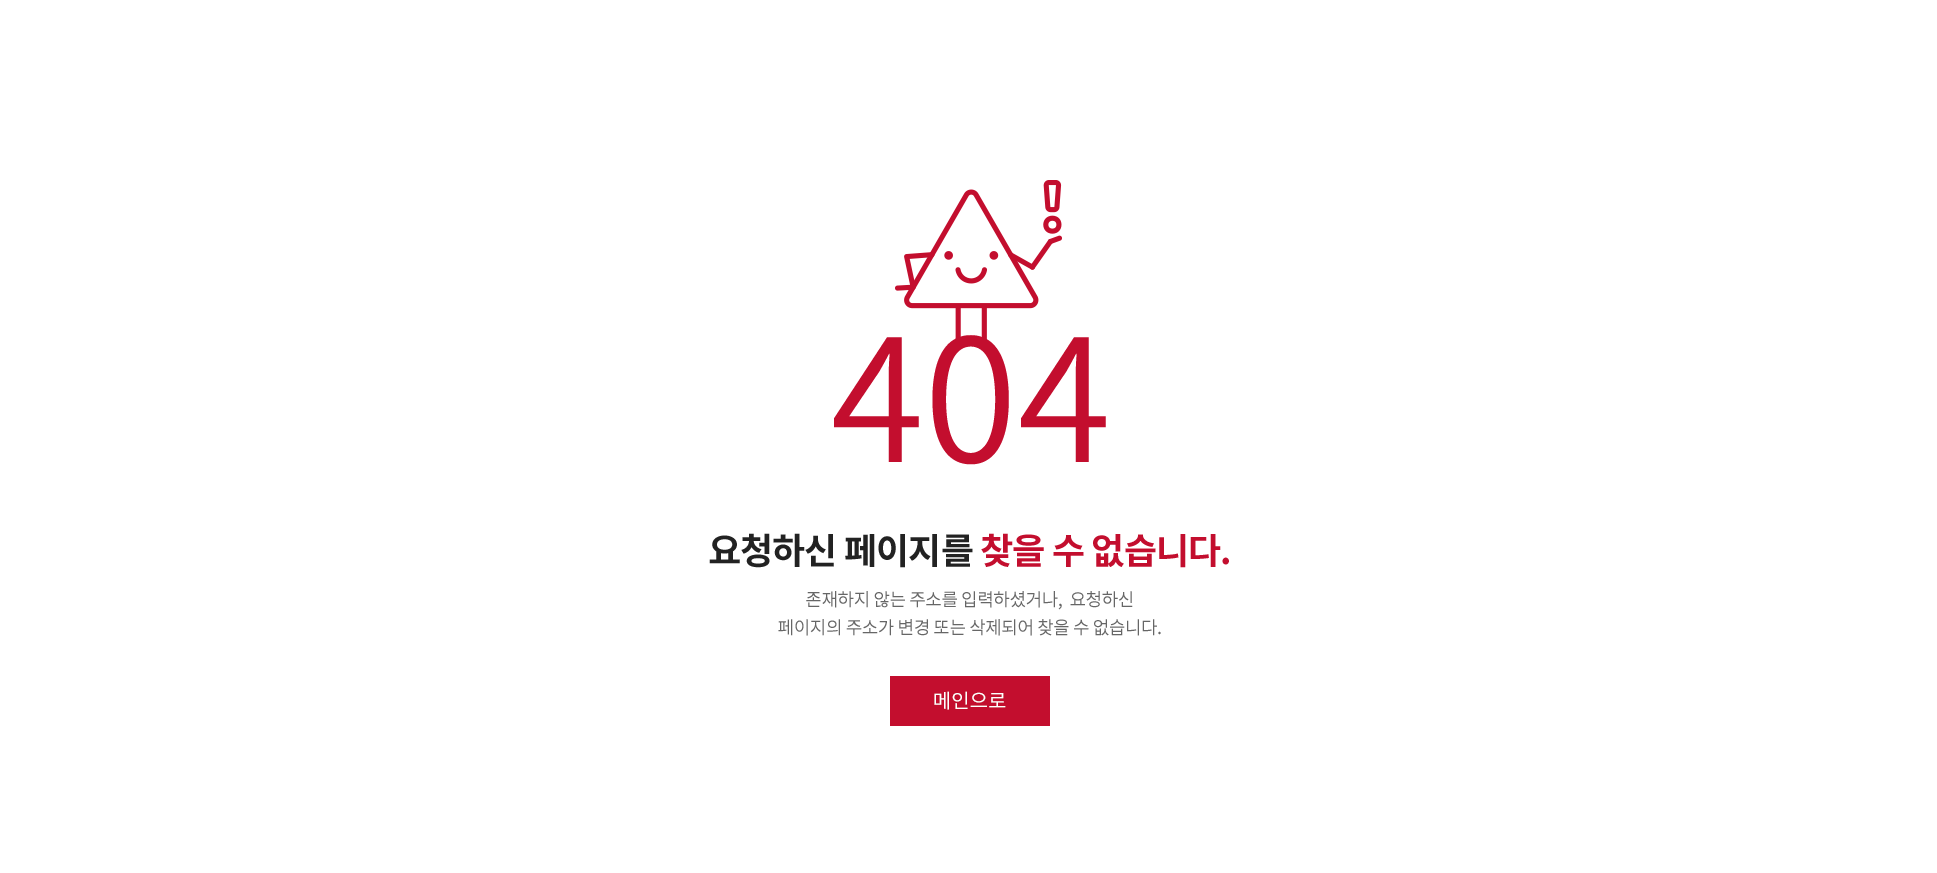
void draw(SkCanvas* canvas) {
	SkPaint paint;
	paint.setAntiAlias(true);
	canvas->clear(0xffffffff);
	canvas->drawImageRect(SkImages::DeferredFromEncodedData(SkData::MakeFromFileName("img1.png")), SkRect::MakeXYWH(709, 180, 520, 546), SkSamplingOptions());
}
